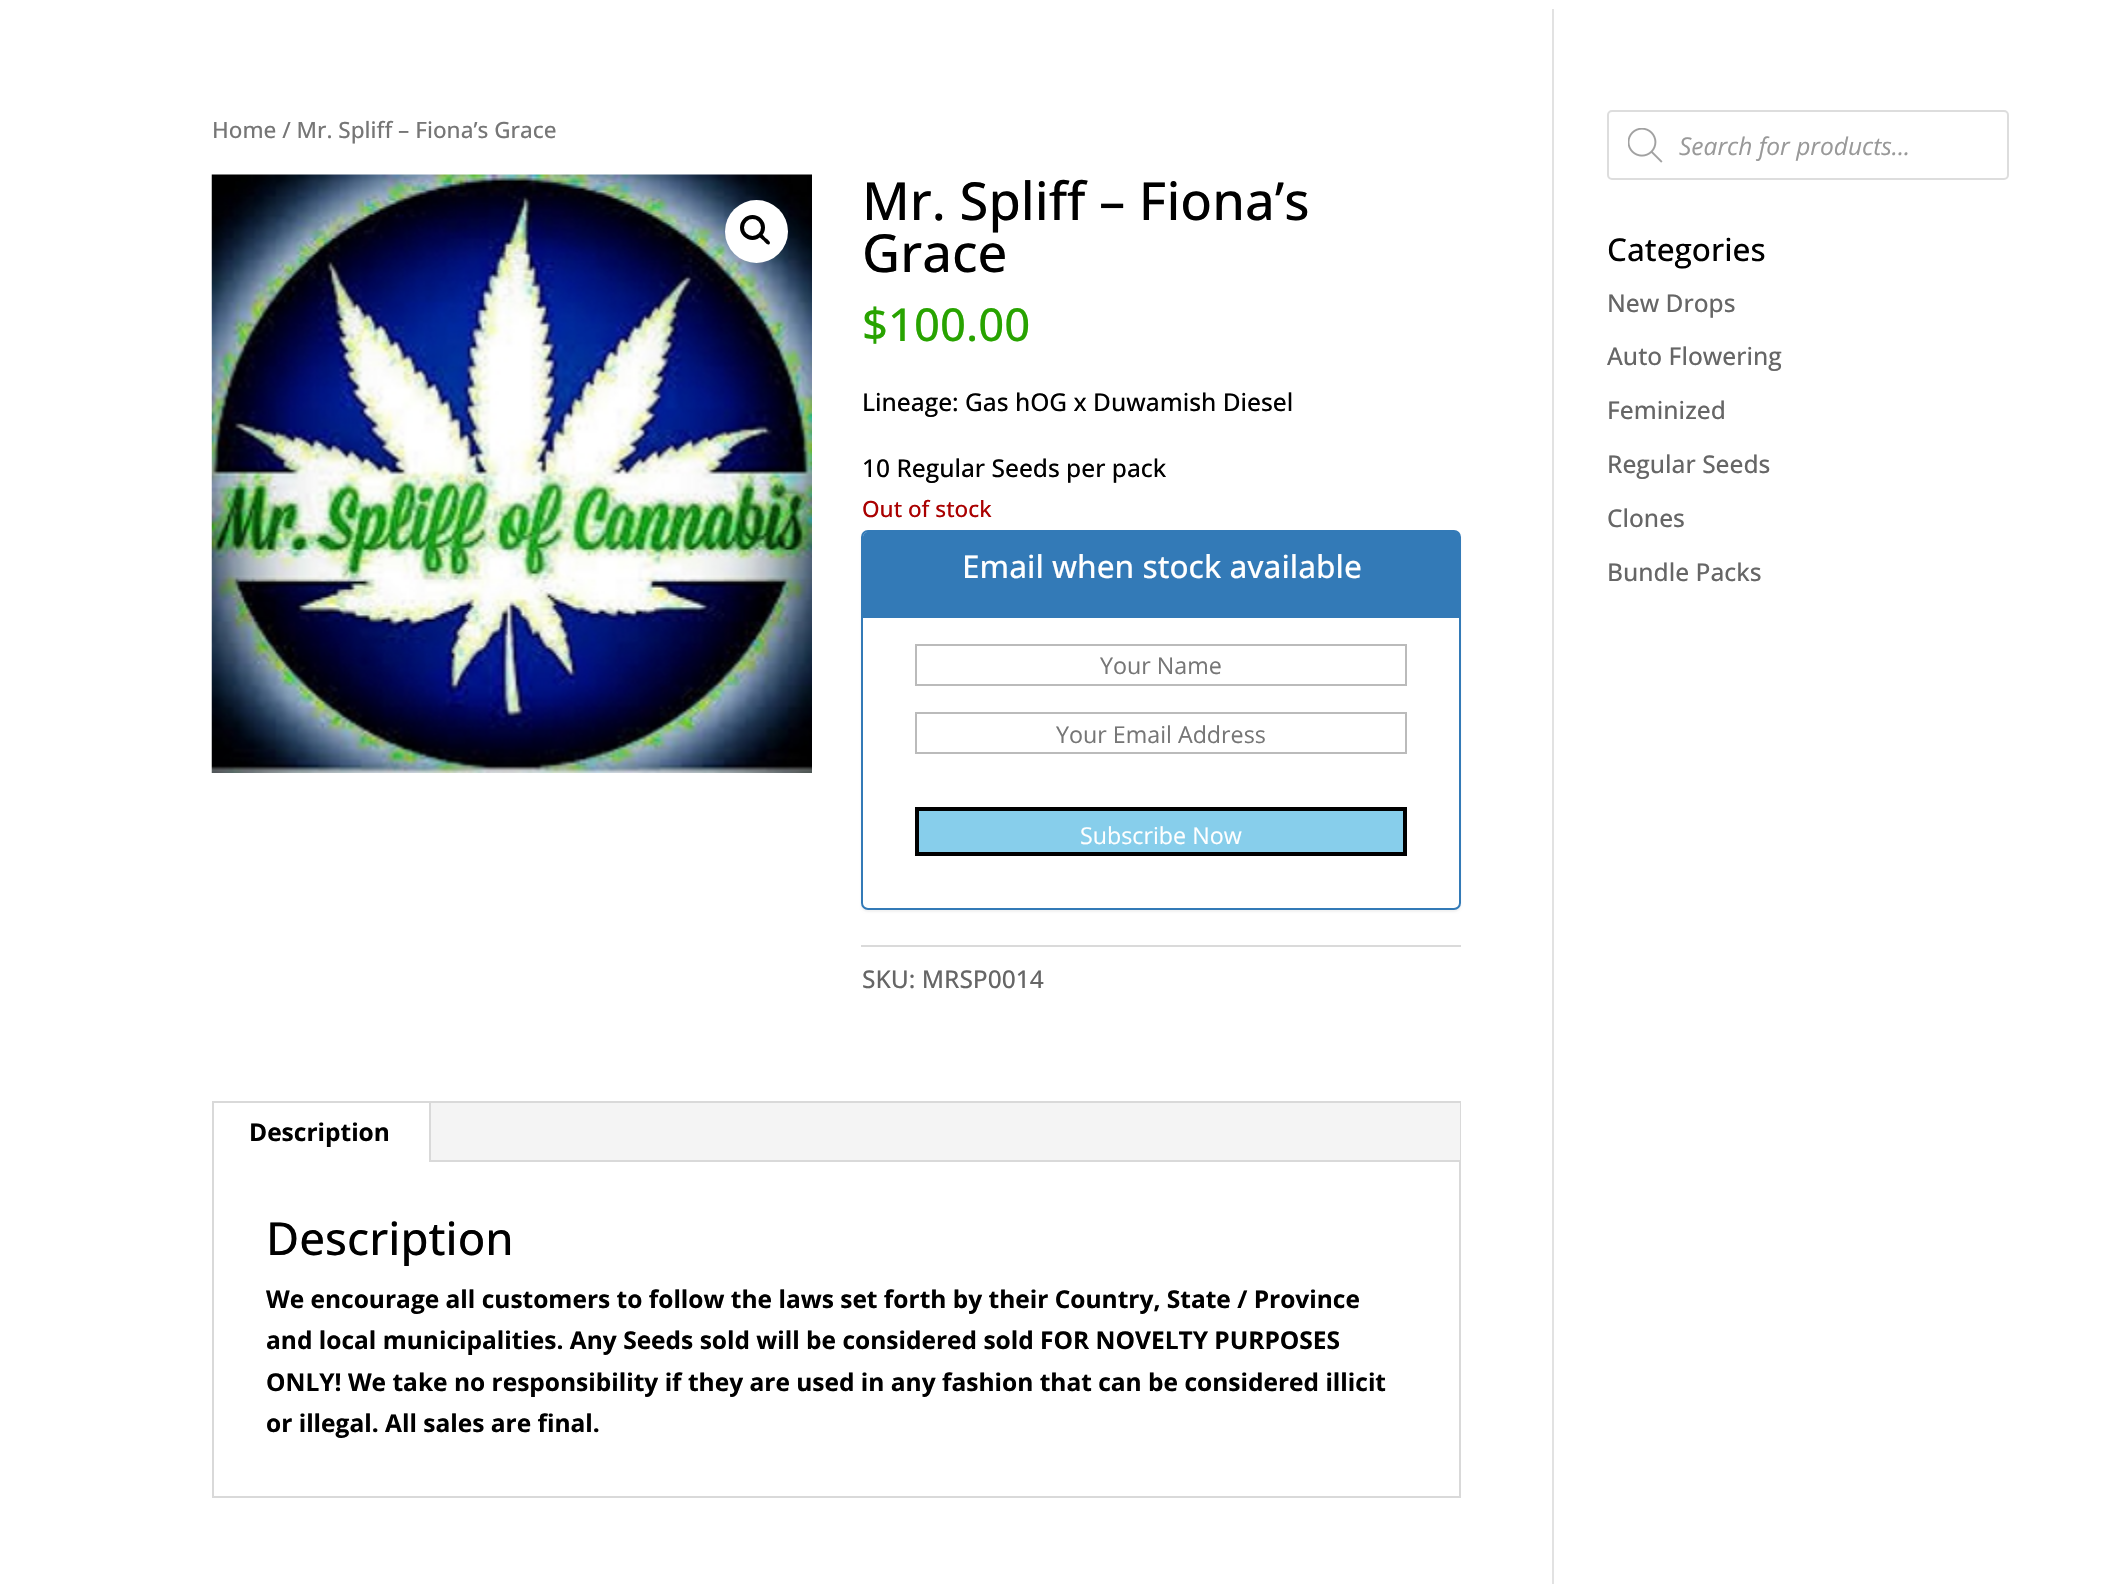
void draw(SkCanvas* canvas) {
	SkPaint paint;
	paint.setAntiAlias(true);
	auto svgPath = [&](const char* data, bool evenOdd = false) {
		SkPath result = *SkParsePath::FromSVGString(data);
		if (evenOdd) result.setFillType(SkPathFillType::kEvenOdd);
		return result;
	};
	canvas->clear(0xffffffff);
	paint.setColor(0xffe2e2e2);
	canvas->drawRect(SkRect::MakeXYWH(1552, 9, 2, 1575), paint);
	SkFont f1(fontMgr->matchFamilyStyle("Open Sans", SkFontStyle(500, SkFontStyle::kNormal_Width, SkFontStyle::kUpright_Slant)), 22.5);
	f1.setSubpixel(true);
	paint.setColor(0xff767676);
	canvas->drawString("Home / Mr. Spliff – Fiona’s Grace", 212, 138, f1, paint);
	canvas->drawImageRect(SkImages::DeferredFromEncodedData(SkData::MakeFromFileName("img1.png")), SkRect::MakeXYWH(211, 174, 601, 599), SkSamplingOptions());
	paint.setColor(0xffffffff);
	canvas->drawCircle(756.5, 231.5, 31.5, paint);
	paint.setStroke(true);
	paint.setStrokeWidth(4);
	paint.setColor(0xff000000);
	canvas->drawCircle(752.5, 227.5, 10.5, paint);
	paint.setStroke(false);
	canvas->drawPath(svgPath("M759.5 234C761.5 232 764.5 237 765.5 238C767 239 771.5 242 769.5 244C767.5 246 764.5 241.5 763.5 240.5C762 239.5 757.5 236 759.5 234Z"), paint);
	SkFont f2(fontMgr->matchFamilyStyle("Open Sans", SkFontStyle(500, SkFontStyle::kNormal_Width, SkFontStyle::kUpright_Slant)), 52.5);
	f2.setSubpixel(true);
	canvas->drawString("Mr. Spliff – Fiona’s", 862, 220, f2, paint);
	canvas->drawString("Grace", 862, 272, f2, paint);
	SkFont f3(fontMgr->matchFamilyStyle("Open Sans", SkFontStyle(500, SkFontStyle::kNormal_Width, SkFontStyle::kUpright_Slant)), 45.5);
	f3.setSubpixel(true);
	paint.setColor(0xff28a300);
	canvas->drawString("$100.00", 862, 341, f3, paint);
	SkFont f4(fontMgr->matchFamilyStyle("Open Sans", SkFontStyle(500, SkFontStyle::kNormal_Width, SkFontStyle::kUpright_Slant)), 24.5);
	f4.setSubpixel(true);
	paint.setColor(0xff000000);
	canvas->drawString("Lineage: Gas hOG x Duwamish Diesel", 862, 411, f4, paint);
	canvas->drawString("10 Regular Seeds per pack", 862, 477, f4, paint);
	paint.setColor(0xffaa0000);
	canvas->drawString("Out of stock", 862, 517, f1, paint);
	canvas->save();
	canvas->clipPath(svgPath("M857 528H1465V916H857ZM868 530H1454C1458 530 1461 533 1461 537V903C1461 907 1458 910 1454 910H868C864 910 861 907 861 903V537C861 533 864 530 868 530Z", true), true);
	paint.setColor(0x0d000000);
	paint.setMaskFilter(SkMaskFilter::MakeBlur(kNormal_SkBlurStyle, 1));
	canvas->drawRoundRect(SkRect::MakeXYWH(861, 532, 600, 380), 7, 7, paint);
	paint.setMaskFilter(nullptr);
	canvas->restore();
	paint.setStroke(true);
	paint.setStrokeWidth(2);
	paint.setColor(0xff337ab7);
	canvas->drawRoundRect(SkRect::MakeXYWH(862, 531, 598, 378), 6, 6, paint);
	paint.setStroke(false);
	canvas->drawPath(svgPath("M868 532H1455C1458 532 1460 534 1460 537V618H863V537C863 534 865 532 868 532Z"), paint);
	SkFont f5(fontMgr->matchFamilyStyle("Open Sans", SkFontStyle(500, SkFontStyle::kNormal_Width, SkFontStyle::kUpright_Slant)), 31.5);
	f5.setSubpixel(true);
	paint.setColor(0xffffffff);
	canvas->drawString("Email when stock available", 962, 578, f5, paint);
	paint.setStroke(true);
	paint.setColor(0xffbbbbbb);
	canvas->drawRect(SkRect::MakeXYWH(916, 645, 490, 40), paint);
	SkFont f6(fontMgr->matchFamilyStyle("Open Sans", SkFontStyle::Normal()), 23.25);
	f6.setSubpixel(true);
	paint.setStroke(false);
	paint.setColor(0xff767676);
	canvas->drawString("Your Name", 1100, 674, f6, paint);
	paint.setStroke(true);
	paint.setColor(0xffbbbbbb);
	canvas->drawRect(SkRect::MakeXYWH(916, 713, 490, 40), paint);
	paint.setStroke(false);
	paint.setColor(0xff767676);
	canvas->drawString("Your Email Address", 1056, 743, f6, paint);
	paint.setColor(0xff87ceeb);
	canvas->drawRect(SkRect::MakeXYWH(917, 809, 488, 45), paint);
	paint.setStroke(true);
	paint.setStrokeWidth(4);
	paint.setColor(0xff000000);
	canvas->drawRect(SkRect::MakeXYWH(917, 809, 488, 45), paint);
	paint.setStroke(false);
	paint.setColor(0xffffffff);
	canvas->drawString("Subscribe Now", 1080, 844, f6, paint);
	paint.setColor(0xffdadada);
	canvas->drawRect(SkRect::MakeXYWH(861, 945, 600, 2), paint);
	paint.setColor(0xff666666);
	canvas->drawString("SKU: MRSP0014", 862, 988, f4, paint);
	paint.setStroke(true);
	paint.setStrokeWidth(2);
	paint.setColor(0xffd9d9d9);
	canvas->drawRect(SkRect::MakeXYWH(213, 1102, 1247, 395), paint);
	paint.setStroke(false);
	paint.setColor(0xfff4f4f4);
	canvas->drawRect(SkRect::MakeXYWH(431, 1103, 1029, 57), paint);
	paint.setColor(0xffd9d9d9);
	canvas->drawRect(SkRect::MakeXYWH(429, 1103, 2, 59), paint);
	SkFont f7(fontMgr->matchFamilyStyle("Open Sans", SkFontStyle::Bold()), 24.5);
	f7.setSubpixel(true);
	paint.setColor(0xff000000);
	canvas->drawString("Description", 249, 1141, f7, paint);
	paint.setColor(0xffd9d9d9);
	canvas->drawRect(SkRect::MakeXYWH(431, 1160, 1029, 2), paint);
	paint.setColor(0xff000000);
	canvas->drawString("Description", 266, 1255, f3, paint);
	canvas->drawString("We encourage all customers to follow the laws set forth by their Country, State / Province", 266, 1308, f7, paint);
	canvas->drawString("and local municipalities. Any Seeds sold will be considered sold FOR NOVELTY PURPOSES", 266, 1349, f7, paint);
	canvas->drawString("ONLY! We take no responsibility if they are used in any fashion that can be considered illicit", 266, 1391, f7, paint);
	canvas->drawString("or illegal. All sales are final.", 266, 1432, f7, paint);
	paint.setStroke(true);
	paint.setColor(0xffdddddd);
	canvas->drawRoundRect(SkRect::MakeXYWH(1608, 111, 400, 68), 4, 4, paint);
	canvas->drawImageRect(SkImages::DeferredFromEncodedData(SkData::MakeFromFileName("img2.png")), SkRect::MakeXYWH(1628, 128, 35, 35), SkSamplingOptions());
	SkFont f8(fontMgr->matchFamilyStyle("Open Sans", SkFontStyle::Italic()), 24.5);
	f8.setSubpixel(true);
	paint.setStroke(false);
	paint.setColor(0xff999999);
	canvas->drawString("Search for products...", 1679, 155, f8, paint);
	paint.setColor(0xff000000);
	canvas->drawString("Categories", 1607, 261, f5, paint);
	paint.setColor(0xff666666);
	canvas->drawString("New Drops", 1607, 312, f4, paint);
	canvas->drawString("Auto Flowering", 1607, 365, f4, paint);
	canvas->drawString("Feminized", 1607, 419, f4, paint);
	canvas->drawString("Regular Seeds", 1607, 473, f4, paint);
	canvas->drawString("Clones", 1607, 527, f4, paint);
	canvas->drawString("Bundle Packs", 1607, 581, f4, paint);
}
